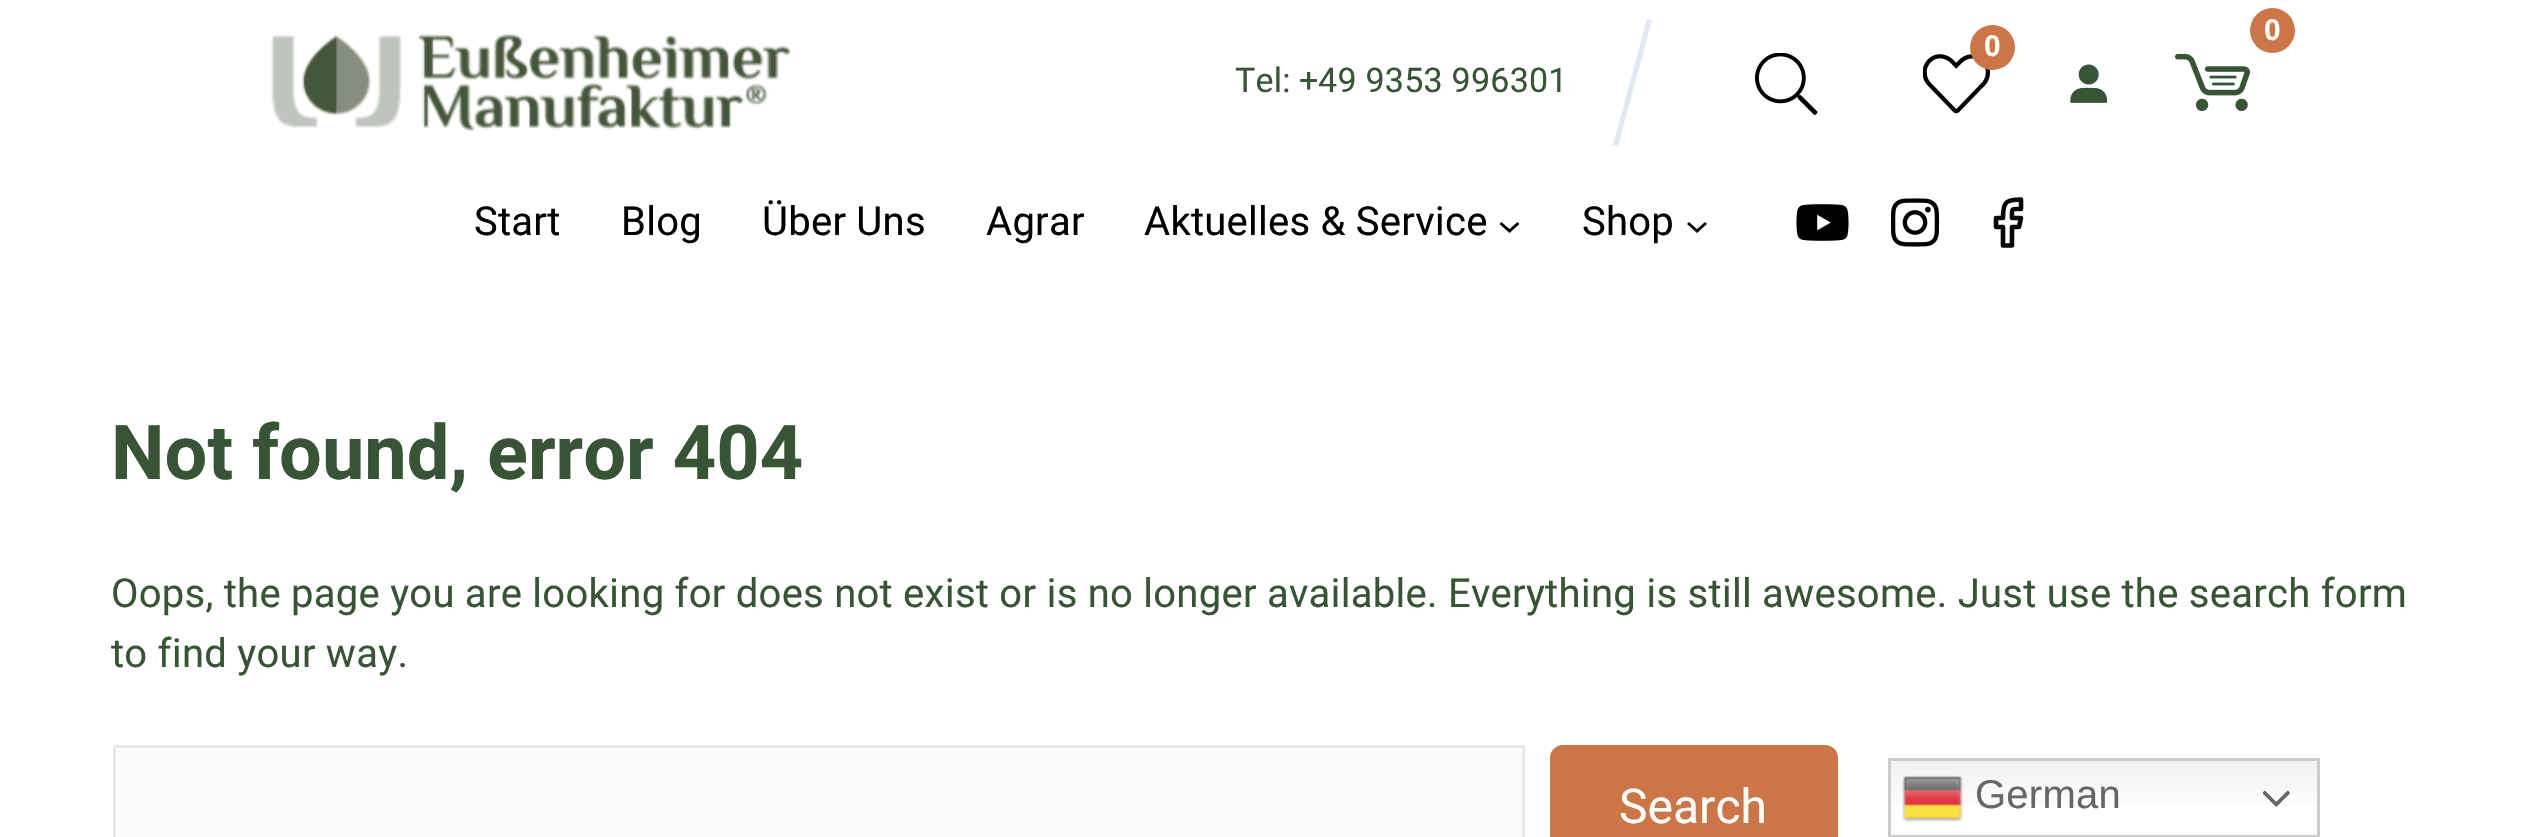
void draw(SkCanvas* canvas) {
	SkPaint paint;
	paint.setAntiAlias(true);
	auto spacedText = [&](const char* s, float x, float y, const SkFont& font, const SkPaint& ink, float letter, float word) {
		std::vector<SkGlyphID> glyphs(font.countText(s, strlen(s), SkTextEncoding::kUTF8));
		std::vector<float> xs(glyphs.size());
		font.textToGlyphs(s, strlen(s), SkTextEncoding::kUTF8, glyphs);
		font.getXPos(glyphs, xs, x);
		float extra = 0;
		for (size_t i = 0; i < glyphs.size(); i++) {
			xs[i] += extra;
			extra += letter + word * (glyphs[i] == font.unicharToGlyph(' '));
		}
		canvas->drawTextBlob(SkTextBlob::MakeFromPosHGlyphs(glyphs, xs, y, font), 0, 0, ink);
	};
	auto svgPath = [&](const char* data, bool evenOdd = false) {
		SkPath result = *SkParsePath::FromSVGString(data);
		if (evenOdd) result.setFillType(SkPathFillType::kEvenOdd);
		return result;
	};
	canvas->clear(0xffffffff);
	canvas->drawImageRect(SkImages::DeferredFromEncodedData(SkData::MakeFromFileName("img1.png")), SkRect::MakeXYWH(271, 34, 519, 98), SkSamplingOptions());
	paint.setColor(0xffe2e8f3);
	canvas->drawPath(svgPath("M1647 19L1652 20L1618 146L1613 145Z"), paint);
	paint.setColor(0xffcc7647);
	canvas->drawCircle(2272.5, 30.5, 22.5, paint);
	SkFont f1(fontMgr->matchFamilyStyle("Liberation Sans", SkFontStyle::Bold()), 30);
	f1.setSubpixel(true);
	paint.setColor(0xfffffffd);
	spacedText("0", 2264, 40, f1, paint, 0.25, 0);
	canvas->drawImageRect(SkImages::DeferredFromEncodedData(SkData::MakeFromFileName("img2.png")), SkRect::MakeXYWH(2175, 53, 75, 59), SkSamplingOptions());
	canvas->drawImageRect(SkImages::DeferredFromEncodedData(SkData::MakeFromFileName("img3.png")), SkRect::MakeXYWH(1923, 54, 67, 60), SkSamplingOptions());
	paint.setColor(0xffcc7647);
	canvas->drawCircle(1992.5, 47.5, 22.5, paint);
	paint.setColor(0xfffffffd);
	spacedText("0", 1984, 56, f1, paint, 0.25, 0);
	SkFont f2(fontMgr->matchFamilyStyle("Heebo", SkFontStyle::Normal()), 34);
	f2.setSubpixel(true);
	paint.setColor(0xff375435);
	spacedText("Tel: +49 9353 996301", 1235, 92, f2, paint, 0.25, 0);
	canvas->drawImageRect(SkImages::DeferredFromEncodedData(SkData::MakeFromFileName("img4.png")), SkRect::MakeXYWH(1755, 53, 63, 62), SkSamplingOptions());
	canvas->drawImageRect(SkImages::DeferredFromEncodedData(SkData::MakeFromFileName("img5.png")), SkRect::MakeXYWH(2070, 64, 38, 39), SkSamplingOptions());
	SkFont f3(fontMgr->matchFamilyStyle("Heebo", SkFontStyle::Normal()), 40);
	f3.setSubpixel(true);
	paint.setColor(0xff000001);
	spacedText("Start", 474, 235, f3, paint, 0.25, 0);
	spacedText("Blog", 621, 235, f3, paint, 0.25, 0);
	spacedText("Über Uns", 762, 235, f3, paint, 0.25, 0);
	spacedText("Agrar", 986, 235, f3, paint, 0.25, 0);
	spacedText("Aktuelles & Service", 1144, 235, f3, paint, 0.25, 0);
	paint.setStroke(true);
	paint.setStrokeWidth(3);
	canvas->drawPath(svgPath("M1500.5 223L1509.5 231L1518.5 223"), paint);
	paint.setStroke(false);
	spacedText("Shop", 1582, 235, f3, paint, 0.25, 0);
	paint.setStroke(true);
	canvas->drawPath(svgPath("M1688 223L1697 231L1706 223"), paint);
	canvas->drawImageRect(SkImages::DeferredFromEncodedData(SkData::MakeFromFileName("img6.png")), SkRect::MakeXYWH(1796, 204, 53, 37), SkSamplingOptions());
	canvas->drawImageRect(SkImages::DeferredFromEncodedData(SkData::MakeFromFileName("img7.png")), SkRect::MakeXYWH(1890, 198, 50, 49), SkSamplingOptions());
	paint.setStrokeWidth(4.6);
	paint.setStrokeCap(SkPaint::kRound_Cap);
	paint.setStrokeJoin(SkPaint::kRound_Join);
	paint.setColor(0xff070707);
	canvas->drawPath(svgPath("M2021 199.5C2005.5 199.5 2003 202 2003 218H1996V227H2003V245.5H2012V227H2019L2021 218H2012C2012 207.5 2011 209 2021 209Z"), paint);
	SkFont f4(fontMgr->matchFamilyStyle("Heebo", SkFontStyle::Bold()), 75.75);
	f4.setSubpixel(true);
	paint.setStroke(false);
	paint.setColor(0xff375435);
	canvas->drawString("Not found, error 404", 111, 479, f4, paint);
	spacedText("Oops, the page you are looking for does not exist or is no longer available. Everything is still awesome. Just use the search form", 111, 607, f3, paint, 0.25, 0);
	spacedText("to find your way.", 111, 667, f3, paint, 0.25, 0);
	paint.setColor(0xfffafbfd);
	canvas->drawRect(SkRect::MakeXYWH(114.5, 746.5, 1409, 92), paint);
	paint.setStroke(true);
	paint.setStrokeWidth(3);
	paint.setStrokeCap(SkPaint::kButt_Cap);
	paint.setStrokeJoin(SkPaint::kMiter_Join);
	paint.setColor(0xffe8e8e9);
	canvas->drawRect(SkRect::MakeXYWH(114.5, 746.5, 1409, 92), paint);
	paint.setStroke(false);
	paint.setColor(0xffcc7647);
	canvas->drawRoundRect(SkRect::MakeXYWH(1550, 745, 288, 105), 13, 13, paint);
	SkFont f5(fontMgr->matchFamilyStyle("Heebo", SkFontStyle::Normal()), 48);
	f5.setSubpixel(true);
	paint.setColor(0xfffffffd);
	canvas->drawString("Search", 1619, 823, f5, paint);
	{
		const SkColor colors[] = {0xffefefef, 0xffffffff};
		const float stops[] = {0, 0.7};
		const SkPoint ends[] = {{2104, 758}, {2104, 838}};
		paint.setShader(SkGradientShader::MakeLinear(ends, colors, stops, 2, SkTileMode::kClamp));
		paint.setAlpha(255);
	}
	canvas->drawRect(SkRect::MakeXYWH(1891, 761, 426, 44), paint);
	paint.setStroke(true);
	paint.setShader(nullptr);
	paint.setColor(0xffcccccc);
	canvas->drawRect(SkRect::MakeXYWH(1889.5, 759.5, 429, 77), paint);
	canvas->drawImageRect(SkImages::DeferredFromEncodedData(SkData::MakeFromFileName("img8.png")), SkRect::MakeXYWH(1902, 775, 61, 47), SkSamplingOptions());
	SkFont f6(fontMgr->matchFamilyStyle("Liberation Sans", SkFontStyle::Normal()), 40);
	f6.setSubpixel(true);
	paint.setStroke(false);
	paint.setColor(0xff666666);
	spacedText("German", 1975, 808, f6, paint, 0.25, 0);
	canvas->drawImageRect(SkImages::DeferredFromEncodedData(SkData::MakeFromFileName("img9.png")), SkRect::MakeXYWH(2263, 790, 27, 17), SkSamplingOptions());
}
